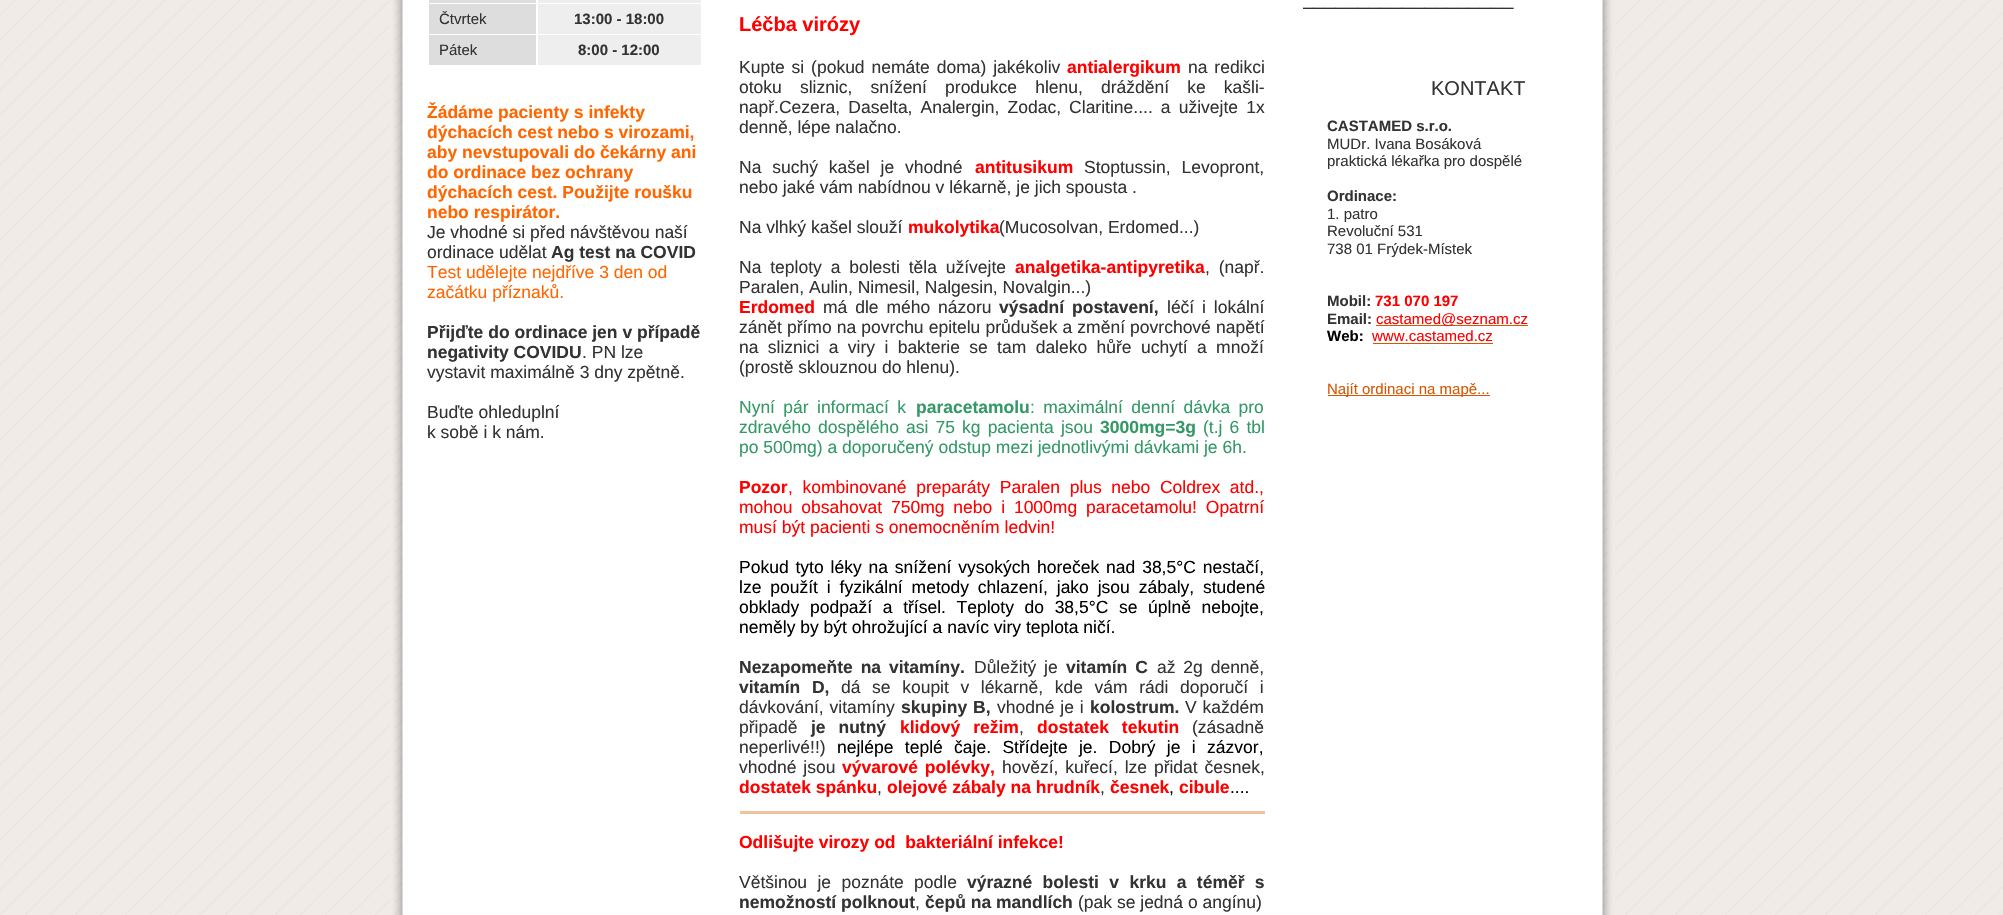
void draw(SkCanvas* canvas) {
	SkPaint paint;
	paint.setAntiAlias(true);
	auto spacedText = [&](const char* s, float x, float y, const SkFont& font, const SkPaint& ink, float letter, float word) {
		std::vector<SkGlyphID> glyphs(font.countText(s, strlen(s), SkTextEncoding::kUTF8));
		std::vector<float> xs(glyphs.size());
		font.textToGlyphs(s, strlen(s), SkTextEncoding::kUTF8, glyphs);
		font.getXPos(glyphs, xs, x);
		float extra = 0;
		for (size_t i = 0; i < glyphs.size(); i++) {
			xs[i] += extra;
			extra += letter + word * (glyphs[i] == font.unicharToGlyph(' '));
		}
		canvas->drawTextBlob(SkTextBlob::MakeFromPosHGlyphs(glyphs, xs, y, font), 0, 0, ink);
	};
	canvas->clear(0xffffffff);
	canvas->drawImageRect(SkImages::DeferredFromEncodedData(SkData::MakeFromFileName("img1.png")), SkRect::MakeXYWH(0, 0, 2003, 915), SkSamplingOptions());
	canvas->drawImageRect(SkImages::DeferredFromEncodedData(SkData::MakeFromFileName("img2.png")), SkRect::MakeXYWH(390, 0, 1225, 915), SkSamplingOptions());
	paint.setColor(0xffdddddd);
	canvas->drawRect(SkRect::MakeXYWH(429, 0, 107, 3), paint);
	paint.setColor(0xffeeeeee);
	canvas->drawRect(SkRect::MakeXYWH(538, 0, 163, 3), paint);
	paint.setColor(0xffdddddd);
	canvas->drawRect(SkRect::MakeXYWH(429, 4, 107, 30), paint);
	SkFont f1(fontMgr->matchFamilyStyle("Liberation Sans", SkFontStyle::Normal()), 15);
	f1.setSubpixel(true);
	paint.setColor(0xff333333);
	canvas->drawString("Čtvrtek", 439, 24, f1, paint);
	paint.setColor(0xffeeeeee);
	canvas->drawRect(SkRect::MakeXYWH(538, 4, 163, 30), paint);
	SkFont f2(fontMgr->matchFamilyStyle("Liberation Sans", SkFontStyle::Bold()), 15);
	f2.setSubpixel(true);
	paint.setColor(0xff333333);
	canvas->drawString("13:00 - 18:00", 574, 24, f2, paint);
	paint.setColor(0xffdddddd);
	canvas->drawRect(SkRect::MakeXYWH(429, 35, 107, 30), paint);
	paint.setColor(0xff333333);
	canvas->drawString("Pátek", 439, 55, f1, paint);
	paint.setColor(0xffeeeeee);
	canvas->drawRect(SkRect::MakeXYWH(538, 35, 163, 30), paint);
	paint.setColor(0xff333333);
	canvas->drawString("8:00 - 12:00", 578, 55, f2, paint);
	SkFont f3(fontMgr->matchFamilyStyle("Liberation Sans", SkFontStyle::Bold()), 17.5);
	f3.setSubpixel(true);
	paint.setColor(0xffff6600);
	canvas->drawString("Žádáme pacienty s infekty", 427, 118, f3, paint);
	canvas->drawString("dýchacích cest nebo s virozami,", 427, 138, f3, paint);
	canvas->drawString("aby nevstupovali do čekárny ani", 427, 158, f3, paint);
	canvas->drawString("do ordinace bez ochrany", 427, 178, f3, paint);
	canvas->drawString("dýchacích cest. Použijte roušku", 427, 198, f3, paint);
	canvas->drawString("nebo respirátor.", 427, 218, f3, paint);
	SkFont f4(fontMgr->matchFamilyStyle("Liberation Sans", SkFontStyle::Normal()), 17.5);
	f4.setSubpixel(true);
	paint.setColor(0xff333333);
	canvas->drawString("Je vhodné si před návštěvou naší", 427, 238, f4, paint);
	canvas->drawString("ordinace udělat", 427, 258, f4, paint);
	canvas->drawString("Ag test na COVID", 551, 258, f3, paint);
	paint.setColor(0xffff6600);
	canvas->drawString("Test udělejte nejdříve 3 den od", 427, 278, f4, paint);
	canvas->drawString("začátku příznaků.", 427, 298, f4, paint);
	paint.setColor(0xff333333);
	canvas->drawString("Přijďte do ordinace jen v případě", 427, 338, f3, paint);
	canvas->drawString("negativity COVIDU", 427, 358, f3, paint);
	canvas->drawString(". PN lze", 582, 358, f4, paint);
	canvas->drawString("vystavit maximálně 3 dny zpětně.", 427, 378, f4, paint);
	canvas->drawString("Buďte ohleduplní", 427, 418, f4, paint);
	canvas->drawString("k sobě i k nám.", 427, 438, f4, paint);
	SkFont f5(fontMgr->matchFamilyStyle("Liberation Sans", SkFontStyle::Bold()), 20);
	f5.setSubpixel(true);
	paint.setColor(0xffff0000);
	canvas->drawString("Léčba virózy", 739, 31, f5, paint);
	paint.setColor(0xff333333);
	spacedText("Kupte si (pokud nemáte doma) jakékoliv", 739, 73, f4, paint, 0, 2);
	paint.setColor(0xffff0000);
	canvas->drawString("antialergikum", 1067, 73, f3, paint);
	paint.setColor(0xff333333);
	spacedText("na redikci", 1188, 73, f4, paint, 0, 2);
	spacedText("otoku sliznic, snížení produkce hlenu, dráždění ke kašli-", 739, 93, f4, paint, 0, 13.25);
	spacedText("např.Cezera, Daselta, Analergin, Zodac, Claritine.... a uživejte 1x", 739, 113, f4, paint, 0, 3.25);
	canvas->drawString("denně, lépe nalačno.", 739, 133, f4, paint);
	spacedText("Na suchý kašel je vhodné", 739, 173, f4, paint, 0, 6);
	paint.setColor(0xffff0000);
	canvas->drawString("antitusikum", 975, 173, f3, paint);
	paint.setColor(0xff333333);
	spacedText("Stoptussin, Levopront,", 1084, 173, f4, paint, 0, 6);
	canvas->drawString("nebo jaké vám nabídnou v lékarně, je jich spousta .", 739, 193, f4, paint);
	canvas->drawString("Na vlhký kašel slouží", 739, 233, f4, paint);
	paint.setColor(0xffff0000);
	canvas->drawString("mukolytika", 908, 233, f3, paint);
	paint.setColor(0xff333333);
	canvas->drawString("(Mucosolvan, Erdomed...)", 999, 233, f4, paint);
	spacedText("Na teploty a bolesti těla užívejte", 739, 273, f4, paint, 0, 4);
	paint.setColor(0xffff0000);
	canvas->drawString("analgetika-antipyretika", 1015, 273, f3, paint);
	paint.setColor(0xff333333);
	spacedText(", (např.", 1205, 273, f4, paint, 0, 4);
	canvas->drawString("Paralen, Aulin, Nimesil, Nalgesin, Novalgin...)", 739, 293, f4, paint);
	paint.setColor(0xffff0000);
	canvas->drawString("Erdomed", 739, 313, f3, paint);
	paint.setColor(0xff333333);
	spacedText("má dle mého názoru", 823, 313, f4, paint, 0, 3);
	spacedText("výsadní postavení,", 999, 313, f3, paint, 0, 3);
	spacedText("léčí i lokální", 1167, 313, f4, paint, 0, 3);
	spacedText("zánět přímo na povrchu epitelu průdušek a změní povrchové napětí", 739, 333, f4, paint, 0, 0.25);
	spacedText("na sliznici a viry i bakterie se tam daleko hůře uchytí a množí", 739, 353, f4, paint, 0, 4.5);
	canvas->drawString("(prostě sklouznou do hlenu).", 739, 373, f4, paint);
	paint.setColor(0xff339966);
	spacedText("Nyní pár informací k", 739, 413, f4, paint, 0, 3.5);
	canvas->drawString("paracetamolu", 916, 413, f3, paint);
	spacedText(": maximální denní dávka pro", 1030, 413, f4, paint, 0, 3.5);
	spacedText("zdravého dospělého asi 75 kg pacienta jsou", 739, 433, f4, paint, 0, 2.25);
	canvas->drawString("3000mg=3g", 1100, 433, f3, paint);
	spacedText("(t.j 6 tbl", 1203, 433, f4, paint, 0, 2.25);
	canvas->drawString("po 500mg) a doporučený odstup mezi jednotlivými dávkami je 6h.", 739, 453, f4, paint);
	paint.setColor(0xffff0000);
	canvas->drawString("Pozor", 739, 493, f3, paint);
	spacedText(", kombinované preparáty Paralen plus nebo Coldrex atd.,", 788, 493, f4, paint, 0, 4.75);
	spacedText("mohou obsahovat 750mg nebo i 1000mg paracetamolu! Opatrní", 739, 513, f4, paint, 0, 4);
	canvas->drawString("musí být pacienti s onemocněním ledvin!", 739, 533, f4, paint);
	paint.setColor(0xff000000);
	spacedText("Pokud tyto léky na snížení vysokých horeček nad 38,5°C nestačí,", 739, 573, f4, paint, 0, 2);
	spacedText("lze použít i fyzikální metody chlazení, jako jsou zábaly, studené", 739, 593, f4, paint, 0, 4);
	spacedText("obklady podpaží a třísel. Teploty do 38,5°C se úplně nebojte,", 739, 613, f4, paint, 0, 5.75);
	canvas->drawString("neměly by být ohrožující a navíc viry teplota ničí.", 739, 633, f4, paint);
	paint.setColor(0xff333333);
	spacedText("Nezapomeňte na vitamíny.", 739, 673, f3, paint, 0, 3);
	spacedText("Důležitý je", 974, 673, f4, paint, 0, 3);
	spacedText("vitamín C", 1066, 673, f3, paint, 0, 3);
	spacedText("až 2g denně,", 1157, 673, f4, paint, 0, 3);
	spacedText("vitamín D,", 739, 693, f3, paint, 0, 6.75);
	spacedText("dá se koupit v lékarně, kde vám rádi doporučí i", 841, 693, f4, paint, 0, 6.75);
	spacedText("dávkování, vitamíny", 739, 713, f4, paint, 0, 1);
	spacedText("skupiny B,", 901, 713, f3, paint, 0, 1);
	spacedText("vhodné je i", 997, 713, f4, paint, 0, 1);
	canvas->drawString("kolostrum.", 1090, 713, f3, paint);
	spacedText("V každém", 1185, 713, f4, paint, 0, 1);
	canvas->drawString("připadě", 739, 733, f4, paint);
	spacedText("je nutný", 811, 733, f3, paint, 0, 8);
	paint.setColor(0xffff0000);
	spacedText("klidový režim", 900, 733, f3, paint, 0, 8);
	paint.setColor(0xff333333);
	canvas->drawString(",", 1019, 733, f4, paint);
	paint.setColor(0xffff0000);
	spacedText("dostatek tekutin", 1037, 733, f3, paint, 0, 8);
	paint.setColor(0xff333333);
	canvas->drawString("(zásadně", 1192, 733, f4, paint);
	canvas->drawString("neperlivé!!)", 739, 753, f4, paint);
	paint.setColor(0xff000000);
	spacedText("nejlépe teplé čaje. Střídejte je. Dobrý je i zázvor,", 837, 753, f4, paint, 0, 6.5);
	paint.setColor(0xff333333);
	spacedText("vhodné jsou", 739, 773, f4, paint, 0, 2);
	paint.setColor(0xffff0000);
	spacedText("vývarové polévky,", 842, 773, f3, paint, 0, 2);
	paint.setColor(0xff333333);
	spacedText("hovězí, kuřecí, lze přidat česnek,", 1002, 773, f4, paint, 0, 2);
	paint.setColor(0xffff0000);
	canvas->drawString("dostatek spánku", 739, 793, f3, paint);
	paint.setColor(0xff333333);
	canvas->drawString(",", 877, 793, f4, paint);
	paint.setColor(0xffff0000);
	canvas->drawString("olejové zábaly na hrudník", 887, 793, f3, paint);
	paint.setColor(0xff333333);
	canvas->drawString(",", 1100, 793, f4, paint);
	paint.setColor(0xffff0000);
	canvas->drawString("česnek", 1110, 793, f3, paint);
	paint.setColor(0xff000000);
	canvas->drawString(",", 1169, 793, f4, paint);
	paint.setColor(0xffff0000);
	canvas->drawString("cibule", 1179, 793, f3, paint);
	paint.setColor(0xff000000);
	canvas->drawString("....", 1230, 793, f4, paint);
	paint.setColor(0xffedc49e);
	canvas->drawRect(SkRect::MakeXYWH(740, 811, 525, 3), paint);
	paint.setColor(0xffff0000);
	canvas->drawString("Odlišujte virozy od  bakteriální infekce!", 739, 848, f3, paint);
	paint.setColor(0xff333333);
	spacedText("Většinou je poznáte podle", 739, 888, f4, paint, 0, 5.5);
	spacedText("výrazné bolesti v krku a téměř s", 967, 888, f3, paint, 0, 5.5);
	canvas->drawString("nemožností polknout", 739, 908, f3, paint);
	canvas->drawString(",", 915, 908, f4, paint);
	canvas->drawString("čepů na mandlích", 925, 908, f3, paint);
	canvas->drawString("(pak se jedná o angínu)", 1078, 908, f4, paint);
	canvas->save();
	canvas->clipRect(SkRect::MakeXYWH(1303, 0, 312, 398));
	SkFont f6(fontMgr->matchFamilyStyle("Liberation Sans", SkFontStyle::Normal()), 20);
	f6.setSubpixel(true);
	canvas->drawString("___________________", 1302, 5, f6, paint);
	canvas->restore();
	canvas->drawString("KONTAKT", 1431, 95, f6, paint);
	canvas->drawString("CASTAMED s.r.o.", 1327, 131, f2, paint);
	canvas->drawString("MUDr. Ivana Bosáková", 1327, 149, f1, paint);
	canvas->drawString("praktická lékařka pro dospělé", 1327, 166, f1, paint);
	canvas->drawString("Ordinace:", 1327, 201, f2, paint);
	canvas->drawString("1. patro", 1327, 219, f1, paint);
	canvas->drawString("Revoluční 531", 1327, 236, f1, paint);
	canvas->drawString("738 01 Frýdek-Místek", 1327, 254, f1, paint);
	canvas->drawString("Mobil:", 1327, 306, f2, paint);
	paint.setColor(0xffff0000);
	canvas->drawString("731 070 197", 1375, 306, f2, paint);
	paint.setColor(0xff333333);
	canvas->drawString("Email:", 1327, 324, f2, paint);
	paint.setColor(0xffd65702);
	canvas->drawRect(SkRect::MakeXYWH(1376, 325, 152, 1), paint);
	paint.setColor(0xffff0000);
	canvas->drawString("castamed@seznam.cz", 1376, 324, f1, paint);
	paint.setColor(0xff000000);
	canvas->drawString("Web:", 1327, 341, f2, paint);
	paint.setColor(0xffff0000);
	canvas->drawString("www.castamed.cz", 1372, 341, f1, paint);
	paint.setColor(0xffd65702);
	canvas->drawRect(SkRect::MakeXYWH(1373, 343, 120, 1), paint);
	canvas->drawRect(SkRect::MakeXYWH(1328, 395, 162, 1), paint);
	canvas->drawString("Najít ordinaci na mapě...", 1327, 394, f1, paint);
}
